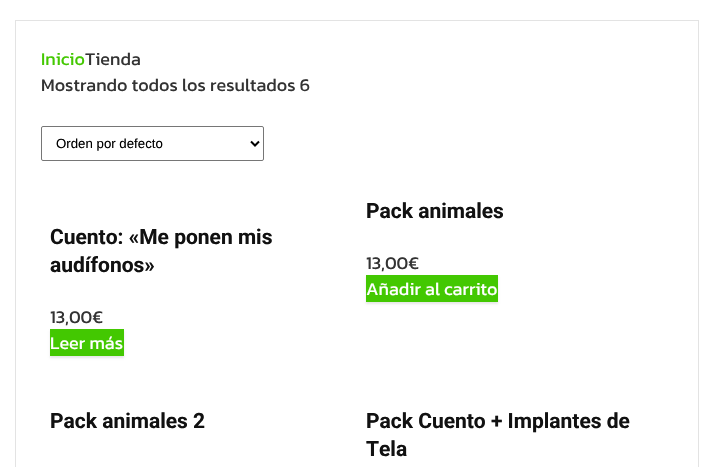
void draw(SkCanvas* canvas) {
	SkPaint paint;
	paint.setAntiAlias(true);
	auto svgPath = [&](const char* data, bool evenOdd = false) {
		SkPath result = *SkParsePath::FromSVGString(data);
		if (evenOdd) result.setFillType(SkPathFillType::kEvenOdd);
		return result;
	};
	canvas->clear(0xffffffff);
	paint.setStroke(true);
	paint.setStrokeWidth(1);
	paint.setColor(0xffe3e3e3);
	canvas->drawRect(SkRect::MakeXYWH(15.5, 20.5, 683, 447), paint);
	SkFont f1(fontMgr->matchFamilyStyle("Kanit", SkFontStyle::Normal()), 18);
	f1.setSubpixel(true);
	paint.setStroke(false);
	paint.setColor(0xff43c801);
	canvas->drawString("Inicio", 41, 65, f1, paint);
	paint.setColor(0xff333333);
	canvas->drawString("Tienda", 85, 65, f1, paint);
	canvas->drawString("Mostrando todos los resultados 6", 41, 91, f1, paint);
	paint.setStroke(true);
	paint.setColor(0xff767676);
	canvas->drawRoundRect(SkRect::MakeXYWH(41.5, 126.5, 222, 34), 1.5, 1.5, paint);
	paint.setStrokeWidth(2);
	paint.setColor(0xff000000);
	canvas->drawPath(svgPath("M251 141.5L255 145.5L259 141.5"), paint);
	SkFont f2(fontMgr->matchFamilyStyle("Liberation Sans", SkFontStyle::Normal()), 13.25);
	f2.setSubpixel(true);
	paint.setStroke(false);
	canvas->drawString("Orden por defecto", 56, 148, f2, paint);
	SkFont f3(fontMgr->matchFamilyStyle("Roboto", SkFontStyle::Bold()), 21);
	f3.setSubpixel(true);
	paint.setColor(0xff111111);
	canvas->drawString("Cuento: «Me ponen mis", 50, 244, f3, paint);
	canvas->drawString("audífonos»", 50, 272, f3, paint);
	paint.setColor(0xff333333);
	canvas->drawString("13,00€", 50, 323, f1, paint);
	paint.setColor(0xffe7e7e7);
	paint.setMaskFilter(SkMaskFilter::MakeBlur(kNormal_SkBlurStyle, 1));
	canvas->drawRect(SkRect::MakeXYWH(50, 331, 74, 27), paint);
	paint.setMaskFilter(nullptr);
	paint.setColor(0xff43c801);
	canvas->drawRect(SkRect::MakeXYWH(50, 329, 74, 27), paint);
	paint.setColor(0xffffffff);
	canvas->drawString("Leer más", 50, 349, f1, paint);
	paint.setColor(0xff111111);
	canvas->drawString("Pack animales", 366, 218, f3, paint);
	paint.setColor(0xff333333);
	canvas->drawString("13,00€", 366, 269, f1, paint);
	paint.setColor(0xffe7e7e7);
	paint.setMaskFilter(SkMaskFilter::MakeBlur(kNormal_SkBlurStyle, 1));
	canvas->drawRect(SkRect::MakeXYWH(366, 277, 132, 27), paint);
	paint.setMaskFilter(nullptr);
	paint.setColor(0xff43c801);
	canvas->drawRect(SkRect::MakeXYWH(366, 275, 132, 27), paint);
	paint.setColor(0xffffffff);
	canvas->drawString("Añadir al carrito", 366, 295, f1, paint);
	paint.setColor(0xff111111);
	canvas->drawString("Pack animales 2", 50, 428, f3, paint);
	canvas->drawString("Pack Cuento + Implantes de", 366, 428, f3, paint);
	canvas->drawString("Tela", 366, 456, f3, paint);
}
